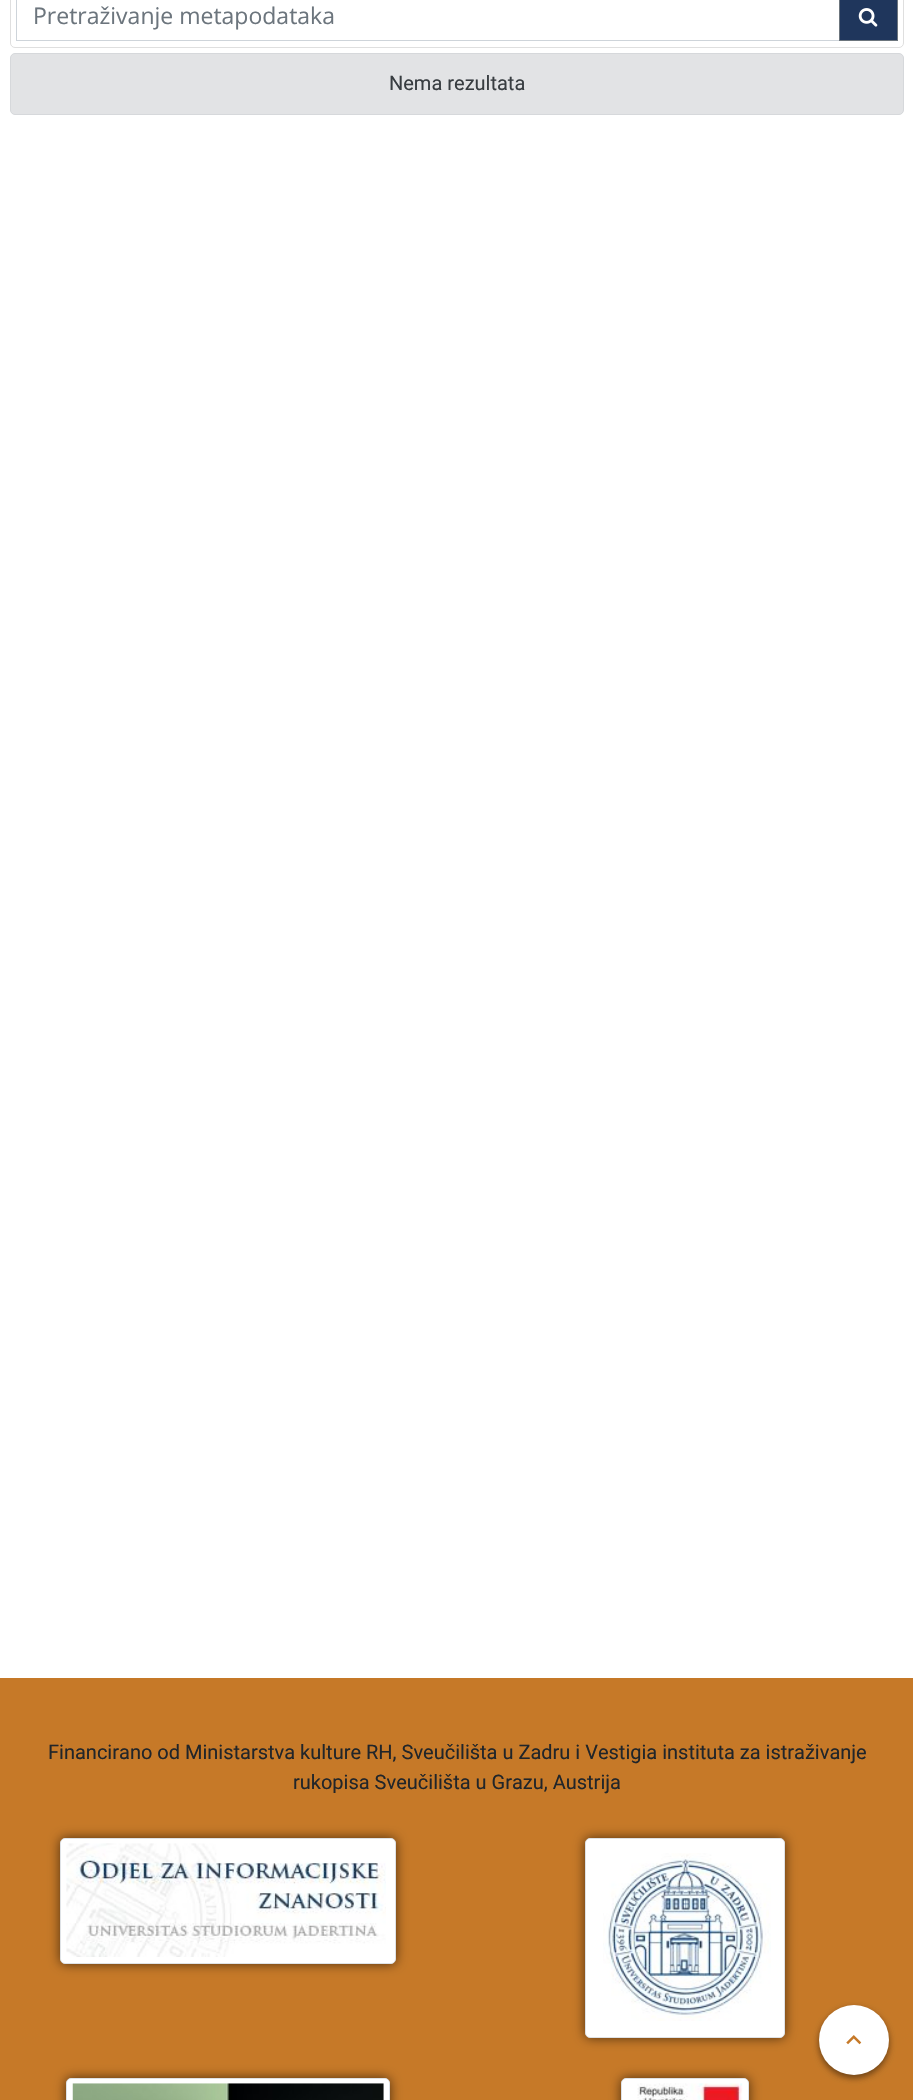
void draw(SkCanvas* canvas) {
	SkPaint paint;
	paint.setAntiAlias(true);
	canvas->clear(0xffffffff);
	paint.setStroke(true);
	paint.setStrokeWidth(1);
	paint.setColor(0xffdfdfdf);
	canvas->drawRoundRect(SkRect::MakeXYWH(10.5, -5.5, 893, 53), 4.5, 4.5, paint);
	paint.setColor(0xffced4da);
	canvas->drawRect(SkRect::MakeXYWH(16.5, -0.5, 823, 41), paint);
	SkFont f1(fontMgr->matchFamilyStyle("Open Sans", SkFontStyle::Normal()), 23);
	f1.setSubpixel(true);
	paint.setStroke(false);
	paint.setColor(0xff6c757d);
	canvas->drawString("Pretraživanje metapodataka", 33, 24, f1, paint);
	paint.setColor(0xff1f365c);
	canvas->drawRect(SkRect::MakeXYWH(839.5, -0.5, 58, 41), paint);
	paint.setStroke(true);
	paint.setColor(0xff6c757d);
	canvas->drawRect(SkRect::MakeXYWH(839.5, -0.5, 58, 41), paint);
	canvas->drawImageRect(SkImages::DeferredFromEncodedData(SkData::MakeFromFileName("img1.png")), SkRect::MakeXYWH(858, 8, 20, 19), SkSamplingOptions());
	paint.setStroke(false);
	paint.setColor(0xffe2e3e5);
	canvas->drawRoundRect(SkRect::MakeXYWH(10.5, 53.5, 893, 61), 4.5, 4.5, paint);
	paint.setStroke(true);
	paint.setColor(0xffd6d8db);
	canvas->drawRoundRect(SkRect::MakeXYWH(10.5, 53.5, 893, 61), 4.5, 4.5, paint);
	SkFont f2(fontMgr->matchFamilyStyle("Roboto", SkFontStyle::Normal()), 20);
	f2.setSubpixel(true);
	paint.setStroke(false);
	paint.setColor(0xff383d41);
	canvas->drawString("Nema rezultata", 389, 90, f2, paint);
	paint.setColor(0xffc67928);
	canvas->drawRect(SkRect::MakeXYWH(0, 1678, 913, 422), paint);
	paint.setColor(0xff212529);
	canvas->drawString("Financirano od Ministarstva kulture RH, Sveučilišta u Zadru i Vestigia instituta za istraživanje", 48, 1759, f2, paint);
	canvas->drawString("rukopisa Sveučilišta u Grazu, Austrija", 293, 1789, f2, paint);
	paint.setColor(0x99000000);
	paint.setMaskFilter(SkMaskFilter::MakeBlur(kNormal_SkBlurStyle, 6));
	canvas->drawRoundRect(SkRect::MakeXYWH(60, 1838, 336, 126), 5, 5, paint);
	paint.setMaskFilter(nullptr);
	paint.setColor(0xffffffff);
	canvas->drawRoundRect(SkRect::MakeXYWH(60.5, 1838.5, 335, 125), 4.5, 4.5, paint);
	paint.setStroke(true);
	paint.setColor(0xffdee2e6);
	canvas->drawRoundRect(SkRect::MakeXYWH(60.5, 1838.5, 335, 125), 4.5, 4.5, paint);
	canvas->drawImageRect(SkImages::DeferredFromEncodedData(SkData::MakeFromFileName("img2.png")), SkRect::MakeXYWH(66, 1843, 320, 114), SkSamplingOptions());
	paint.setStroke(false);
	paint.setColor(0x99000000);
	paint.setMaskFilter(SkMaskFilter::MakeBlur(kNormal_SkBlurStyle, 6));
	canvas->drawRoundRect(SkRect::MakeXYWH(585, 1838, 200, 200), 5, 5, paint);
	paint.setMaskFilter(nullptr);
	paint.setColor(0xffffffff);
	canvas->drawRoundRect(SkRect::MakeXYWH(585.5, 1838.5, 199, 199), 4.5, 4.5, paint);
	paint.setStroke(true);
	paint.setColor(0xffdee2e6);
	canvas->drawRoundRect(SkRect::MakeXYWH(585.5, 1838.5, 199, 199), 4.5, 4.5, paint);
	canvas->drawImageRect(SkImages::DeferredFromEncodedData(SkData::MakeFromFileName("img3.png")), SkRect::MakeXYWH(603, 1853, 168, 168), SkSamplingOptions());
	paint.setStroke(false);
	paint.setColor(0x99000000);
	paint.setMaskFilter(SkMaskFilter::MakeBlur(kNormal_SkBlurStyle, 6));
	canvas->drawRoundRect(SkRect::MakeXYWH(66, 2078, 324, 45), 5, 5, paint);
	paint.setMaskFilter(nullptr);
	paint.setColor(0xffffffff);
	canvas->drawRoundRect(SkRect::MakeXYWH(66.5, 2078.5, 323, 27), 4.5, 4.5, paint);
	paint.setStroke(true);
	paint.setColor(0xffdee2e6);
	canvas->drawRoundRect(SkRect::MakeXYWH(66.5, 2078.5, 323, 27), 4.5, 4.5, paint);
	canvas->drawImageRect(SkImages::DeferredFromEncodedData(SkData::MakeFromFileName("img4.png")), SkRect::MakeXYWH(72, 2083, 312, 17), SkSamplingOptions());
	paint.setStroke(false);
	paint.setColor(0x99000000);
	paint.setMaskFilter(SkMaskFilter::MakeBlur(kNormal_SkBlurStyle, 6));
	canvas->drawRoundRect(SkRect::MakeXYWH(621, 2078, 128, 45), 5, 5, paint);
	paint.setMaskFilter(nullptr);
	paint.setColor(0xffffffff);
	canvas->drawRoundRect(SkRect::MakeXYWH(621.5, 2078.5, 127, 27), 4.5, 4.5, paint);
	paint.setStroke(true);
	paint.setColor(0xffdee2e6);
	canvas->drawRoundRect(SkRect::MakeXYWH(621.5, 2078.5, 127, 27), 4.5, 4.5, paint);
	canvas->drawImageRect(SkImages::DeferredFromEncodedData(SkData::MakeFromFileName("img5.png")), SkRect::MakeXYWH(637, 2083, 106, 17), SkSamplingOptions());
	paint.setStroke(false);
	paint.setColor(0x42000000);
	paint.setMaskFilter(SkMaskFilter::MakeBlur(kNormal_SkBlurStyle, 3));
	canvas->drawRoundRect(SkRect::MakeXYWH(819, 2008, 70, 70), 35, 35, paint);
	paint.setMaskFilter(nullptr);
	paint.setMaskFilter(SkMaskFilter::MakeBlur(kNormal_SkBlurStyle, 3));
	canvas->drawRoundRect(SkRect::MakeXYWH(819, 2008, 70, 70), 35, 35, paint);
	paint.setMaskFilter(nullptr);
	paint.setColor(0xffffffff);
	canvas->drawCircle(854, 2040, 35, paint);
	canvas->drawImageRect(SkImages::DeferredFromEncodedData(SkData::MakeFromFileName("img6.png")), SkRect::MakeXYWH(846, 2035, 16, 10), SkSamplingOptions());
}
